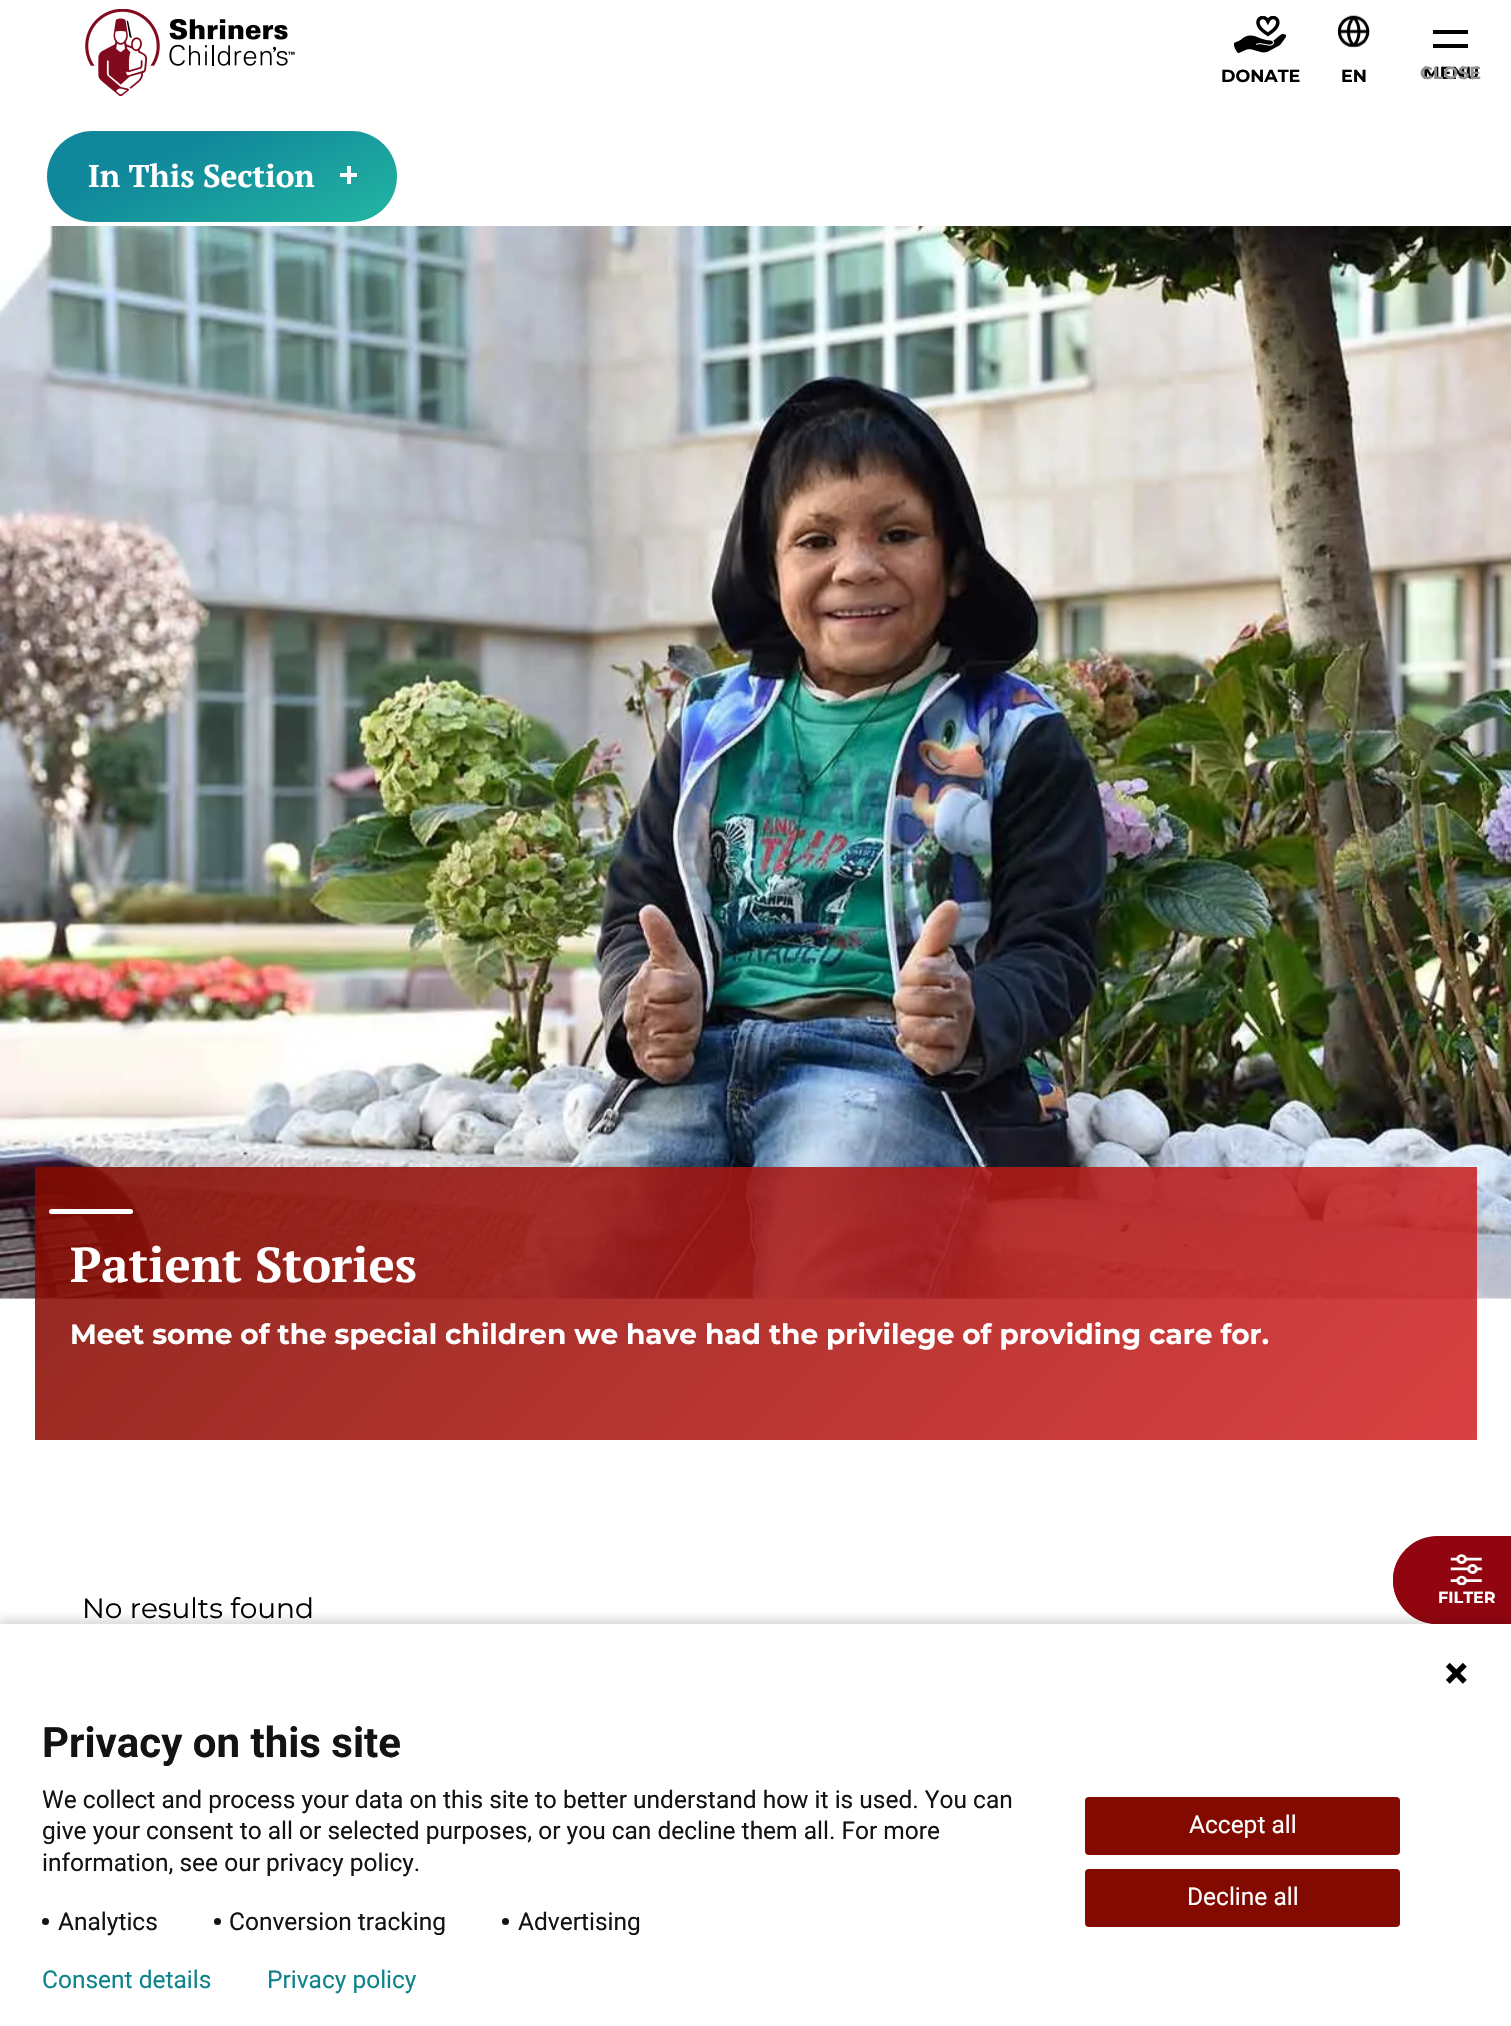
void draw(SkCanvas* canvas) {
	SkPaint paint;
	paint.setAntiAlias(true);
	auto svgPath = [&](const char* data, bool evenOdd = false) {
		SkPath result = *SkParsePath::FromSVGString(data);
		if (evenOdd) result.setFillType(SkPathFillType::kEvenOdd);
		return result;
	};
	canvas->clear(0xffffffff);
	canvas->drawImageRect(SkImages::DeferredFromEncodedData(SkData::MakeFromFileName("img1.png")), SkRect::MakeXYWH(85, 9, 210, 87), SkSamplingOptions());
	canvas->drawImageRect(SkImages::DeferredFromEncodedData(SkData::MakeFromFileName("img2.png")), SkRect::MakeXYWH(1234, 16, 52, 38), SkSamplingOptions());
	SkFont f1(fontMgr->matchFamilyStyle("Montserrat", SkFontStyle::Bold()), 17.5);
	f1.setSubpixel(true);
	paint.setColor(0xff000000);
	canvas->drawString("DONATE", 1221, 82, f1, paint);
	canvas->drawImageRect(SkImages::DeferredFromEncodedData(SkData::MakeFromFileName("img3.png")), SkRect::MakeXYWH(1337, 15, 33, 33), SkSamplingOptions());
	canvas->drawString("EN", 1341, 82, f1, paint);
	canvas->drawRect(SkRect::MakeXYWH(1433, 30, 35, 4), paint);
	canvas->drawRect(SkRect::MakeXYWH(1433, 44, 35, 4), paint);
	canvas->drawString("MENU", 1423, 79, f1, paint);
	paint.setColor(0xff8f8f8f);
	canvas->drawString("CLOSE", 1420, 79, f1, paint);
	{
		const SkColor colors[] = {0xff10879b, 0xff10879b, 0xff29c4a4};
		const float stops[] = {0, 0.25, 1};
		const SkPoint ends[] = {{176, 74}, {286, 321}};
		paint.setShader(SkGradientShader::MakeLinear(ends, colors, stops, 3, SkTileMode::kClamp));
		paint.setAlpha(255);
	}
	canvas->drawRoundRect(SkRect::MakeXYWH(47, 131, 350, 91), 45.5, 45.5, paint);
	SkFont f2(fontMgr->matchFamilyStyle("PT Serif", SkFontStyle::Bold()), 31.5);
	f2.setSubpixel(true);
	paint.setShader(nullptr);
	paint.setColor(0xffffffff);
	canvas->drawString("In This Section", 88, 187, f2, paint);
	canvas->drawRect(SkRect::MakeXYWH(340, 173, 17, 4), paint);
	canvas->drawRect(SkRect::MakeXYWH(347, 166, 4, 18), paint);
	canvas->drawImageRect(SkImages::DeferredFromEncodedData(SkData::MakeFromFileName("img4.png")), SkRect::MakeXYWH(0, 226, 1511, 1073), SkSamplingOptions());
	{
		const SkColor colors[] = {0xe0820a00, 0xe0d42729};
		const float stops[] = {0, 1};
		const SkPoint ends[] = {{327, 875}, {1185, 1733}};
		paint.setShader(SkGradientShader::MakeLinear(ends, colors, stops, 2, SkTileMode::kClamp));
		paint.setAlpha(255);
	}
	canvas->drawRect(SkRect::MakeXYWH(35, 1167, 1442, 273), paint);
	paint.setShader(nullptr);
	paint.setColor(0xffffffff);
	canvas->drawRoundRect(SkRect::MakeXYWH(49, 1209, 84, 5), 2.5, 2.5, paint);
	SkFont f3(fontMgr->matchFamilyStyle("PT Serif", SkFontStyle::Bold()), 49);
	f3.setSubpixel(true);
	canvas->drawString("Patient Stories", 70, 1282, f3, paint);
	SkFont f4(fontMgr->matchFamilyStyle("Montserrat", SkFontStyle::Bold()), 28);
	f4.setSubpixel(true);
	canvas->drawString("Meet some of the special children we have had the privilege of providing care for.", 70, 1344, f4, paint);
	SkFont f5(fontMgr->matchFamilyStyle("Montserrat", SkFontStyle::Normal()), 28);
	f5.setSubpixel(true);
	paint.setColor(0xff000000);
	canvas->drawString("No results found", 82, 1618, f5, paint);
	paint.setColor(0xff910510);
	canvas->drawPath(svgPath("M1436.5 1537H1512V1624H1436.5C1412.5 1624 1393 1604.5 1393 1580.5C1393 1556.5 1412.5 1537 1436.5 1537Z"), paint);
	canvas->drawPath(svgPath("M1437 1536H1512V1624H1437C1413 1624 1393 1604 1393 1580C1393 1556 1413 1536 1437 1536ZM1437 1540H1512V1620H1437C1415 1620 1396 1602 1396 1580C1396 1558 1415 1540 1437 1540Z", true), paint);
	canvas->drawImageRect(SkImages::DeferredFromEncodedData(SkData::MakeFromFileName("img5.png")), SkRect::MakeXYWH(1450, 1554, 33, 32), SkSamplingOptions());
	SkFont f6(fontMgr->matchFamilyStyle("Montserrat", SkFontStyle::Bold()), 16);
	f6.setSubpixel(true);
	paint.setColor(0xffffffff);
	canvas->drawString("FILTER", 1438, 1603, f6, paint);
	paint.setColor(0x24000000);
	paint.setMaskFilter(SkMaskFilter::MakeBlur(kNormal_SkBlurStyle, 4.5));
	canvas->drawRect(SkRect::MakeXYWH(-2, 1619, 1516, 406), paint);
	paint.setMaskFilter(nullptr);
	paint.setColor(0xffffffff);
	canvas->drawRect(SkRect::MakeXYWH(0, 1624, 1511, 402), paint);
	canvas->drawImageRect(SkImages::DeferredFromEncodedData(SkData::MakeFromFileName("img6.png")), SkRect::MakeXYWH(1445, 1662, 22, 22), SkSamplingOptions());
	SkFont f7(fontMgr->matchFamilyStyle("Roboto", SkFontStyle::Bold()), 42);
	f7.setSubpixel(true);
	paint.setColor(0xff131313);
	canvas->drawString("Privacy on this site", 42, 1757, f7, paint);
	SkFont f8(fontMgr->matchFamilyStyle("Roboto", SkFontStyle::Normal()), 24.5);
	f8.setSubpixel(true);
	canvas->drawString("We collect and process your data on this site to better understand how it is used. You can", 42, 1808, f8, paint);
	canvas->drawString("give your consent to all or selected purposes, or you can decline them all. For more", 42, 1839, f8, paint);
	canvas->drawString("information, see our privacy policy.", 42, 1871, f8, paint);
	canvas->drawCircle(45.5, 1921.5, 3.5, paint);
	canvas->drawString("Analytics", 58, 1930, f8, paint);
	canvas->drawCircle(217.5, 1921.5, 3.5, paint);
	canvas->drawString("Conversion tracking", 229, 1930, f8, paint);
	canvas->drawCircle(505.5, 1921.5, 3.5, paint);
	canvas->drawString("Advertising", 518, 1930, f8, paint);
	paint.setColor(0xff820a00);
	canvas->drawRoundRect(SkRect::MakeXYWH(1086, 1798, 313, 56), 3, 3, paint);
	paint.setStroke(true);
	paint.setStrokeWidth(2);
	canvas->drawRoundRect(SkRect::MakeXYWH(1086, 1798, 313, 56), 3, 3, paint);
	paint.setStroke(false);
	paint.setColor(0xffffffff);
	canvas->drawString("Accept all", 1189, 1833, f8, paint);
	paint.setColor(0xff820a00);
	canvas->drawRoundRect(SkRect::MakeXYWH(1086, 1870, 313, 56), 3, 3, paint);
	paint.setStroke(true);
	canvas->drawRoundRect(SkRect::MakeXYWH(1086, 1870, 313, 56), 3, 3, paint);
	paint.setStroke(false);
	paint.setColor(0xffffffff);
	canvas->drawString("Decline all", 1187, 1905, f8, paint);
	paint.setColor(0xff0e838c);
	canvas->drawString("Consent details", 42, 1988, f8, paint);
	canvas->drawString("Privacy policy", 267, 1988, f8, paint);
}
